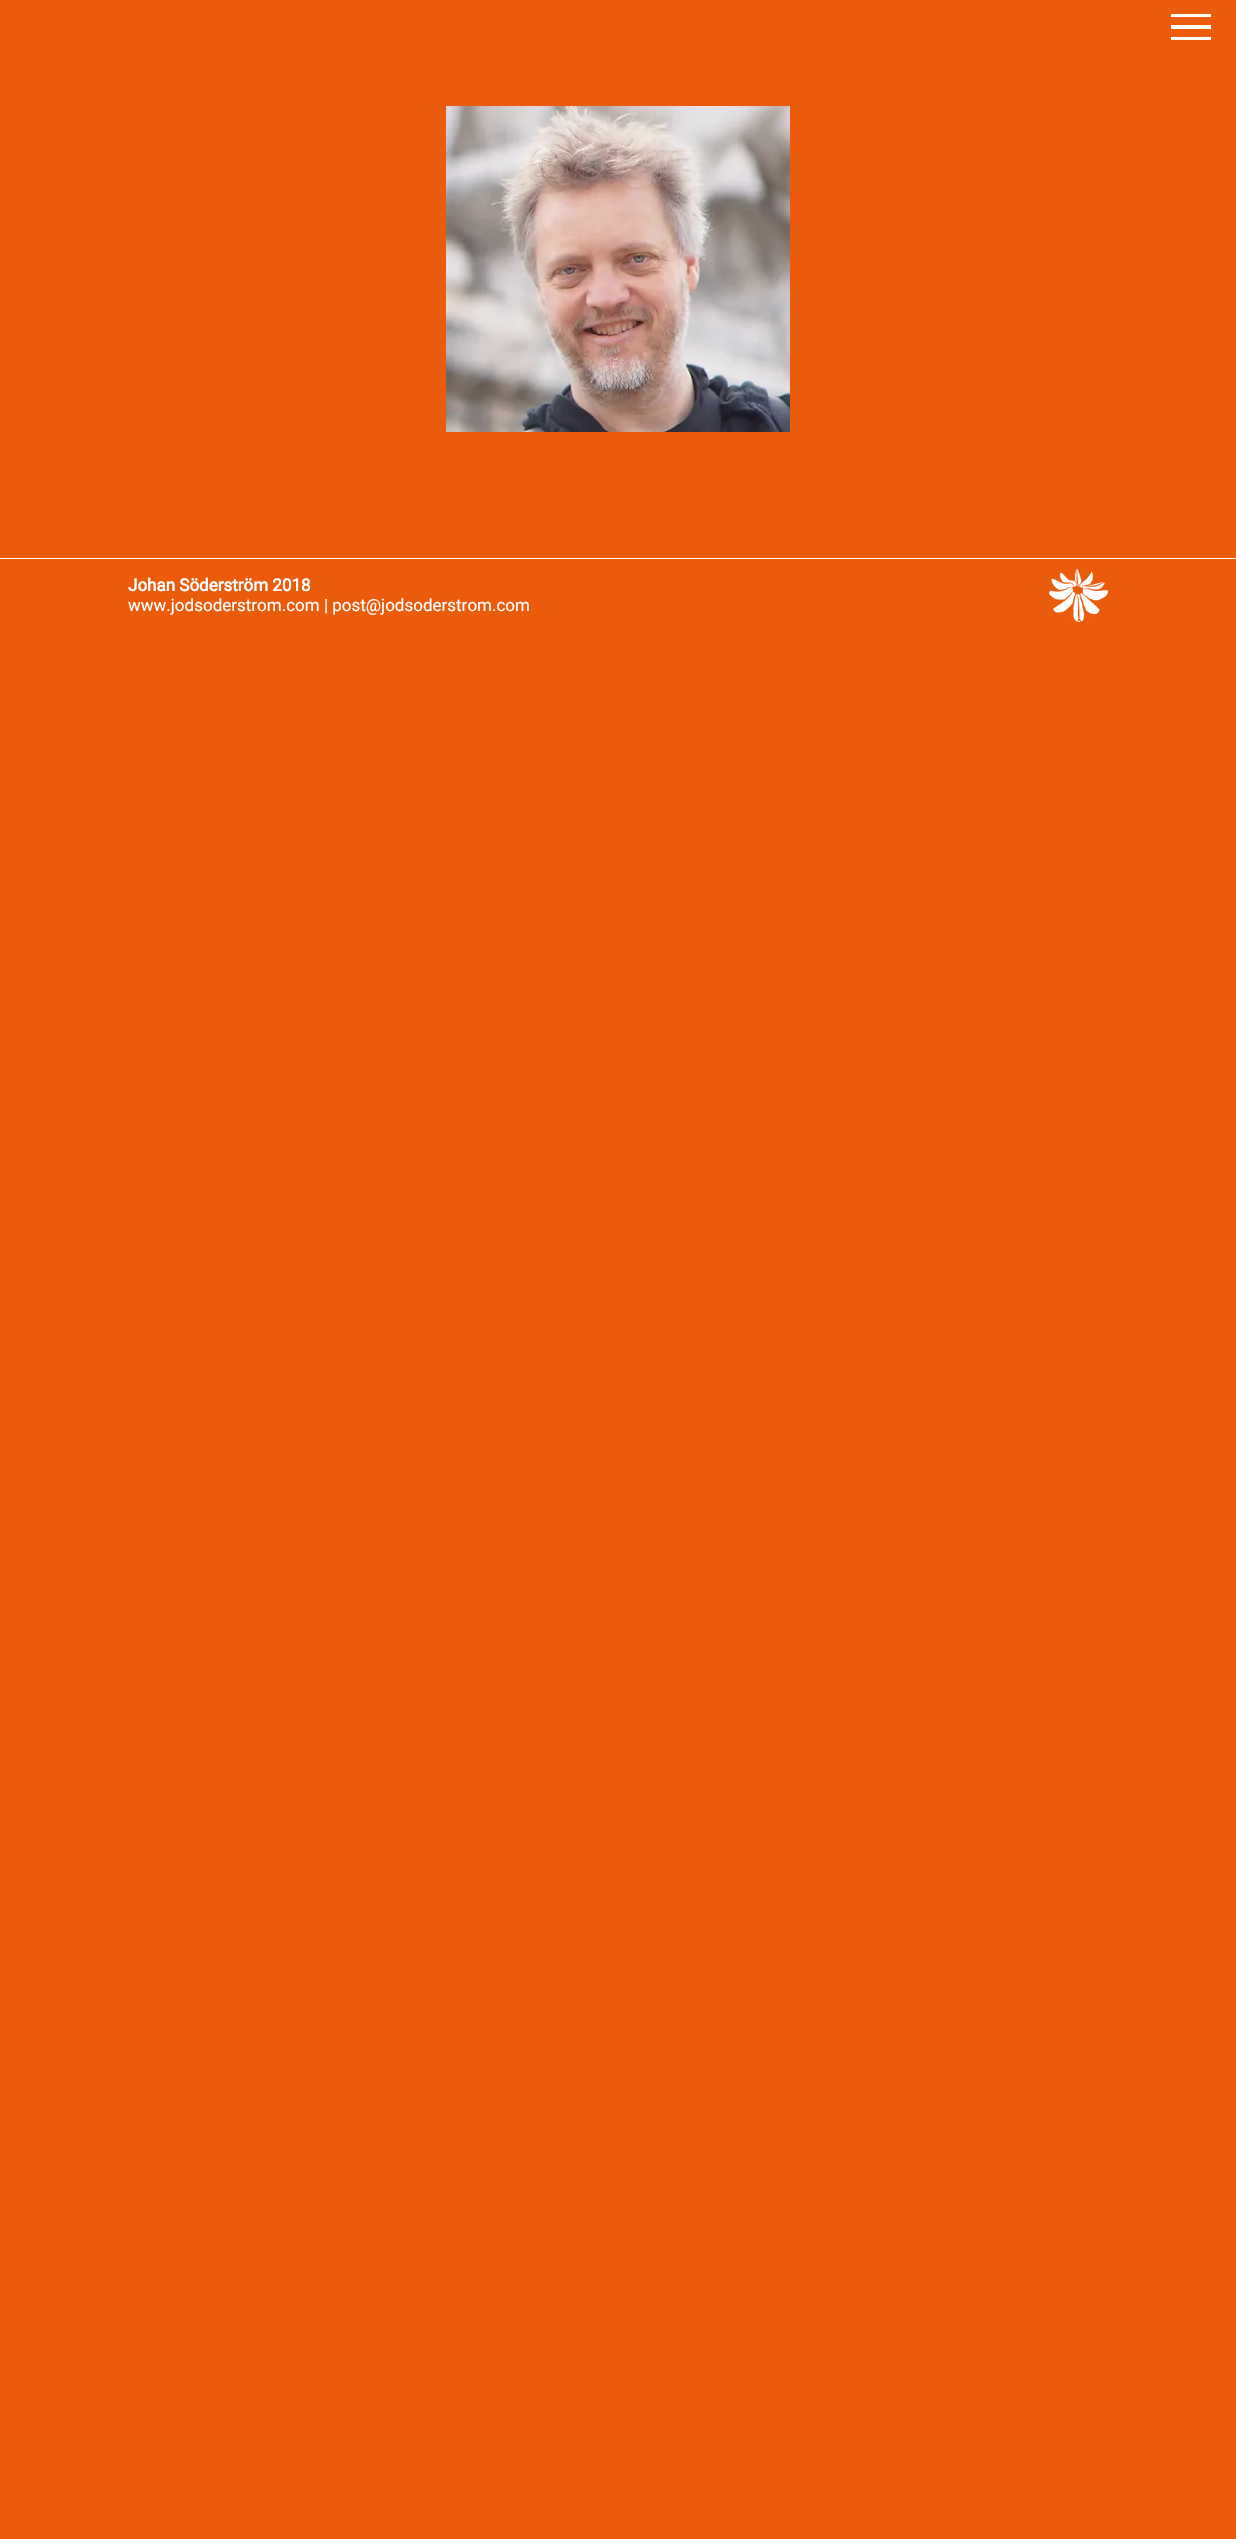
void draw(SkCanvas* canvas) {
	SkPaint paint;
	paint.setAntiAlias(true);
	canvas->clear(0xffea5b0c);
	paint.setColor(0xffffffff);
	canvas->drawRect(SkRect::MakeXYWH(1171, 37, 40, 3), paint);
	canvas->drawRect(SkRect::MakeXYWH(1171, 14, 40, 3), paint);
	canvas->drawRect(SkRect::MakeXYWH(1171, 25, 40, 4), paint);
	canvas->drawImageRect(SkImages::DeferredFromEncodedData(SkData::MakeFromFileName("img1.png")), SkRect::MakeXYWH(446, 106, 344, 326), SkSamplingOptions());
	canvas->drawRect(SkRect::MakeXYWH(0, 558, 1236, 1), paint);
	SkFont f1(fontMgr->matchFamilyStyle("Roboto", SkFontStyle::Bold()), 17);
	f1.setSubpixel(true);
	canvas->drawString("Johan Söderström 2018", 128, 591, f1, paint);
	SkFont f2(fontMgr->matchFamilyStyle("Roboto", SkFontStyle::Normal()), 17);
	f2.setSubpixel(true);
	canvas->drawString("www.jodsoderstrom.com | post@jodsoderstrom.com", 128, 611, f2, paint);
	canvas->drawImageRect(SkImages::DeferredFromEncodedData(SkData::MakeFromFileName("img2.png")), SkRect::MakeXYWH(1049, 569, 59, 53), SkSamplingOptions());
}
